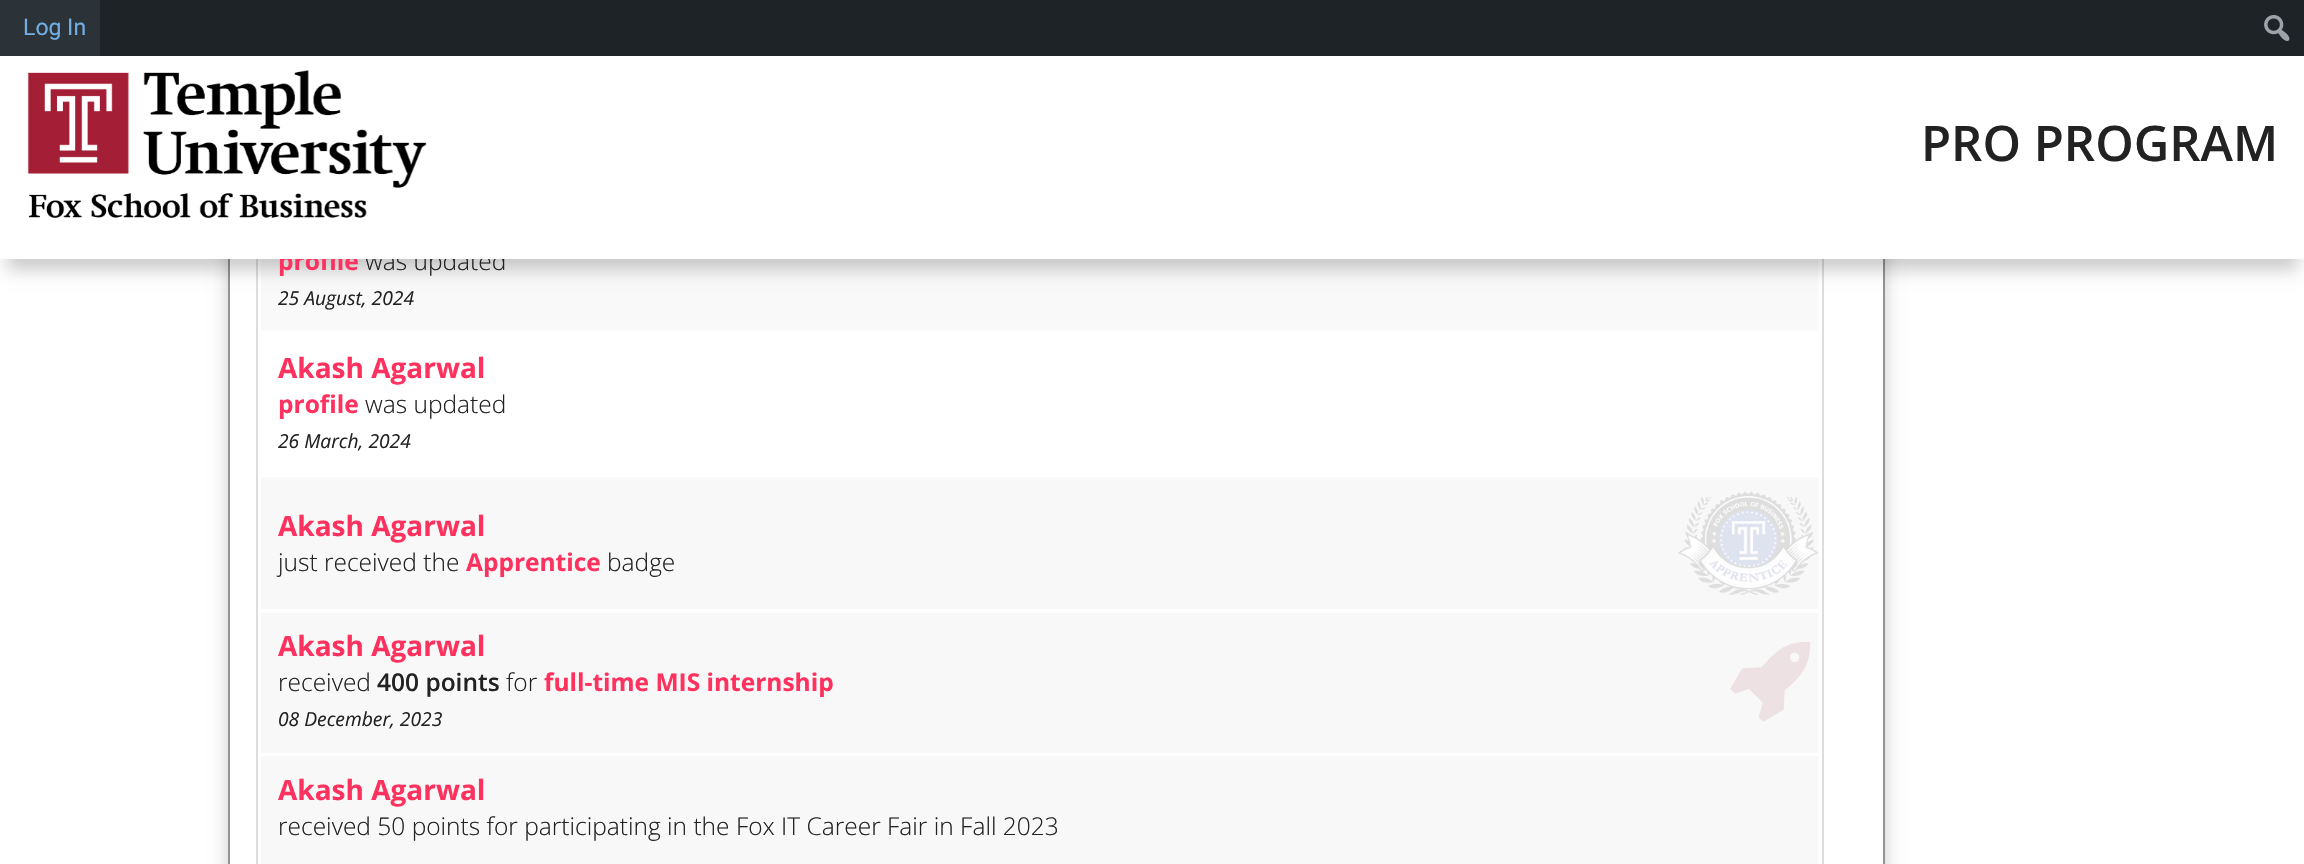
void draw(SkCanvas* canvas) {
	SkPaint paint;
	paint.setAntiAlias(true);
	auto svgPath = [&](const char* data, bool evenOdd = false) {
		SkPath result = *SkParsePath::FromSVGString(data);
		if (evenOdd) result.setFillType(SkPathFillType::kEvenOdd);
		return result;
	};
	canvas->clear(0xffffffff);
	canvas->save();
	canvas->clipPath(svgPath("M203 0H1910V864H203ZM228-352H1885V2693H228Z", true), true);
	paint.setColor(0x33000000);
	paint.setMaskFilter(SkMaskFilter::MakeBlur(kNormal_SkBlurStyle, 8));
	canvas->drawRect(SkRect::MakeXYWH(228, -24, 1657, 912), paint);
	paint.setMaskFilter(nullptr);
	canvas->restore();
	paint.setStroke(true);
	paint.setStrokeWidth(2);
	paint.setColor(0xff939393);
	canvas->drawRect(SkRect::MakeXYWH(229, -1, 1655, 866), paint);
	paint.setColor(0xffdddddd);
	canvas->drawRect(SkRect::MakeXYWH(257, -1, 1566, 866), paint);
	paint.setStroke(false);
	paint.setColor(0xfff9f9f9);
	canvas->drawRect(SkRect::MakeXYWH(261, 259, 1557, 72), paint);
	paint.setColor(0x33000000);
	paint.setMaskFilter(SkMaskFilter::MakeBlur(kNormal_SkBlurStyle, 8));
	canvas->drawRect(SkRect::MakeXYWH(7, 56, 2291, 214), paint);
	paint.setMaskFilter(nullptr);
	paint.setColor(0xff1d2327);
	canvas->drawRect(SkRect::MakeXYWH(100, 0, 2204, 56), paint);
	paint.setColor(0xff2c3338);
	canvas->drawRect(SkRect::MakeXYWH(0, 0, 100, 56), paint);
	SkFont f1(fontMgr->matchFamilyStyle("Roboto", SkFontStyle::Normal()), 23);
	f1.setSubpixel(true);
	paint.setColor(0xff72aee6);
	canvas->drawString("Log In", 23, 35, f1, paint);
	canvas->drawImageRect(SkImages::DeferredFromEncodedData(SkData::MakeFromFileName("img1.png")), SkRect::MakeXYWH(2264, 15, 26, 26), SkSamplingOptions());
	SkFont f2(fontMgr->matchFamilyStyle("Open Sans", SkFontStyle::Bold()), 24.5);
	f2.setSubpixel(true);
	paint.setColor(0xffff315e);
	canvas->drawString("profile", 278, 270, f2, paint);
	SkFont f3(fontMgr->matchFamilyStyle("Open Sans", SkFontStyle(300, SkFontStyle::kNormal_Width, SkFontStyle::kUpright_Slant)), 24.5);
	f3.setSubpixel(true);
	paint.setColor(0xff222222);
	canvas->drawString("was updated", 365, 270, f3, paint);
	paint.setColor(0xffffffff);
	canvas->drawRect(SkRect::MakeXYWH(0, 56, 2304, 203), paint);
	canvas->drawImageRect(SkImages::DeferredFromEncodedData(SkData::MakeFromFileName("img2.png")), SkRect::MakeXYWH(27, 70, 400, 149), SkSamplingOptions());
	SkFont f4(fontMgr->matchFamilyStyle("Open Sans", SkFontStyle(600, SkFontStyle::kNormal_Width, SkFontStyle::kUpright_Slant)), 49);
	f4.setSubpixel(true);
	paint.setColor(0xff222222);
	canvas->drawString("PRO PROGRAM", 1921, 161, f4, paint);
	SkFont f5(fontMgr->matchFamilyStyle("Open Sans", SkFontStyle::Italic()), 19.25);
	f5.setSubpixel(true);
	canvas->drawString("25 August, 2024", 278, 305, f5, paint);
	SkFont f6(fontMgr->matchFamilyStyle("Open Sans", SkFontStyle::Bold()), 28);
	f6.setSubpixel(true);
	paint.setColor(0xffff315e);
	canvas->drawString("Akash Agarwal", 278, 378, f6, paint);
	canvas->drawString("profile", 278, 413, f2, paint);
	paint.setColor(0xff222222);
	canvas->drawString("was updated", 365, 413, f3, paint);
	canvas->drawString("26 March, 2024", 278, 448, f5, paint);
	paint.setColor(0xfff8f8f8);
	canvas->drawRect(SkRect::MakeXYWH(261, 595, 1557, 14), paint);
	canvas->drawImageRect(SkImages::DeferredFromEncodedData(SkData::MakeFromFileName("img3.png")), SkRect::MakeXYWH(261, 477, 1558, 118), SkSamplingOptions());
	paint.setColor(0xffff315e);
	canvas->drawString("Akash Agarwal", 278, 536, f6, paint);
	paint.setColor(0xff222222);
	canvas->drawString("just received the", 278, 571, f3, paint);
	paint.setColor(0xffff315e);
	canvas->drawString("Apprentice", 466, 571, f2, paint);
	paint.setColor(0xff222222);
	canvas->drawString("badge", 607, 571, f3, paint);
	paint.setColor(0xfff8f8f8);
	canvas->drawRect(SkRect::MakeXYWH(261, 613, 1557, 140), paint);
	paint.setColor(0xffff315e);
	canvas->drawString("Akash Agarwal", 278, 656, f6, paint);
	canvas->drawImageRect(SkImages::DeferredFromEncodedData(SkData::MakeFromFileName("img4.png")), SkRect::MakeXYWH(1730, 641, 81, 81), SkSamplingOptions());
	paint.setColor(0xff222222);
	canvas->drawString("received", 278, 691, f3, paint);
	SkFont f7(fontMgr->matchFamilyStyle("Open Sans", SkFontStyle(600, SkFontStyle::kNormal_Width, SkFontStyle::kUpright_Slant)), 24.5);
	f7.setSubpixel(true);
	canvas->drawString("400 points", 377, 691, f7, paint);
	canvas->drawString("for", 506, 691, f3, paint);
	paint.setColor(0xffff315e);
	canvas->drawString("full-time MIS internship", 544, 691, f2, paint);
	paint.setColor(0xff222222);
	canvas->drawString("08 December, 2023", 278, 726, f5, paint);
	paint.setColor(0xfff8f8f8);
	canvas->drawRect(SkRect::MakeXYWH(261, 756, 1557, 108), paint);
	paint.setColor(0xffff315e);
	canvas->drawString("Akash Agarwal", 278, 800, f6, paint);
	paint.setColor(0xff222222);
	canvas->drawString("received 50 points for participating in the Fox IT Career Fair in Fall 2023", 278, 835, f3, paint);
}
